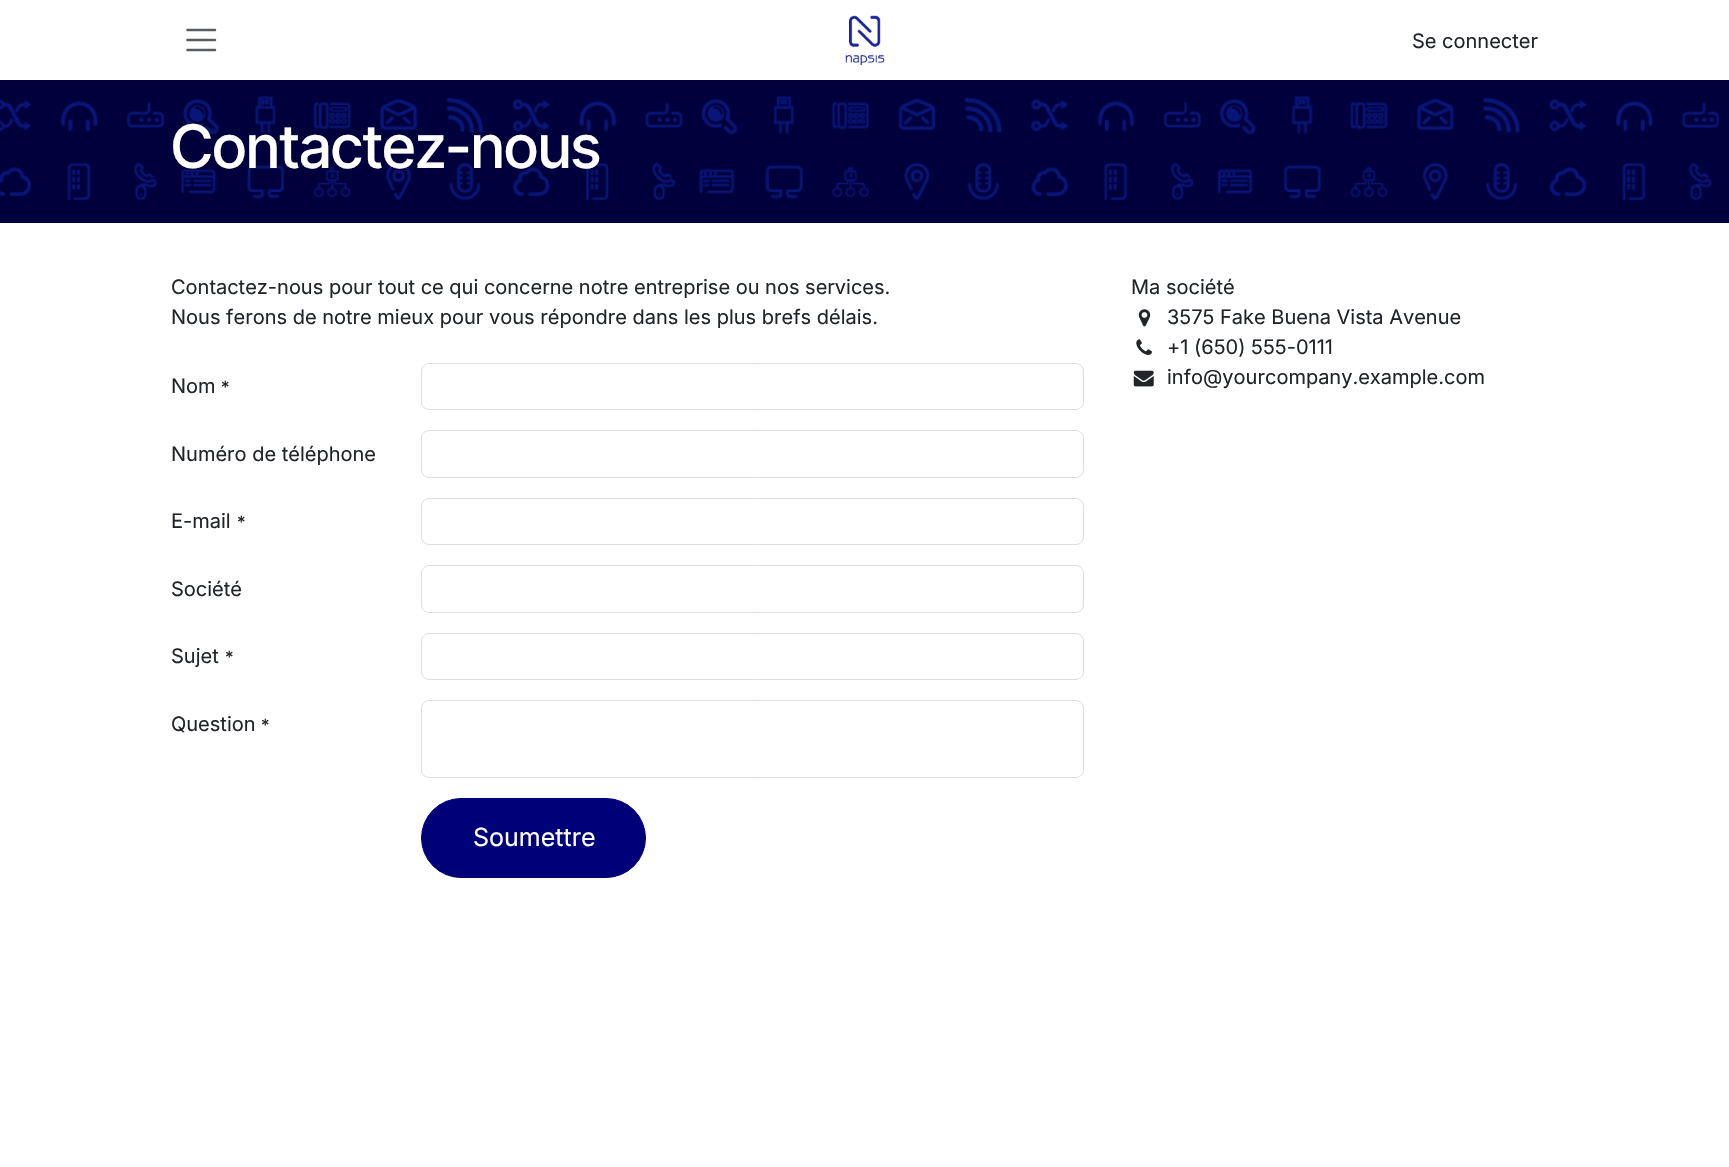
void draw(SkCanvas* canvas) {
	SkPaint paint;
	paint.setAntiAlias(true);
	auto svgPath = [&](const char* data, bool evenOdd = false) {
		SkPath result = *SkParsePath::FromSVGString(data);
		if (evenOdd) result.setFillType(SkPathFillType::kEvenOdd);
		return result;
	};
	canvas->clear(0xffffffff);
	paint.setStroke(true);
	paint.setStrokeWidth(2.5);
	paint.setStrokeCap(SkPaint::kRound_Cap);
	paint.setColor(0xff595c5f);
	canvas->drawPath(svgPath("M187.5 30H215M187.5 40H215M187.5 50H215"), paint);
	canvas->drawImageRect(SkImages::DeferredFromEncodedData(SkData::MakeFromFileName("img1.png")), SkRect::MakeXYWH(845, 15, 40, 50), SkSamplingOptions());
	SkFont f1(fontMgr->matchFamilyStyle("Inter", SkFontStyle::Normal()), 20);
	f1.setSubpixel(true);
	paint.setStroke(false);
	paint.setColor(0xff212529);
	canvas->drawString("Se connecter", 1412, 48, f1, paint);
	canvas->drawImageRect(SkImages::DeferredFromEncodedData(SkData::MakeFromFileName("img2.png")), SkRect::MakeXYWH(0, 80, 1729, 143), SkSamplingOptions());
	SkFont f2(fontMgr->matchFamilyStyle("Inter Tight", SkFontStyle(500, SkFontStyle::kNormal_Width, SkFontStyle::kUpright_Slant)), 60);
	f2.setSubpixel(true);
	paint.setColor(0xffffffff);
	canvas->drawString("Contactez-nous", 171, 168, f2, paint);
	paint.setColor(0xff212529);
	canvas->drawString("Contactez-nous pour tout ce qui concerne notre entreprise ou nos services.", 171, 294, f1, paint);
	canvas->drawString("Nous ferons de notre mieux pour vous répondre dans les plus brefs délais.", 171, 324, f1, paint);
	canvas->drawString("Nom", 171, 393, f1, paint);
	SkFont f3(fontMgr->matchFamilyStyle("Inter", SkFontStyle::Normal()), 17);
	f3.setSubpixel(true);
	canvas->drawString("*", 221, 393, f3, paint);
	paint.setStroke(true);
	paint.setStrokeWidth(1);
	paint.setStrokeCap(SkPaint::kButt_Cap);
	paint.setColor(0xffdededf);
	canvas->drawRoundRect(SkRect::MakeXYWH(421.5, 363.5, 662, 46), 7.5, 7.5, paint);
	paint.setStroke(false);
	paint.setColor(0xff212529);
	canvas->drawString("Numéro de téléphone", 171, 461, f1, paint);
	paint.setStroke(true);
	paint.setColor(0xffdededf);
	canvas->drawRoundRect(SkRect::MakeXYWH(421.5, 430.5, 662, 47), 7.5, 7.5, paint);
	paint.setStroke(false);
	paint.setColor(0xff212529);
	canvas->drawString("E-mail", 171, 528, f1, paint);
	canvas->drawString("*", 237, 528, f3, paint);
	paint.setStroke(true);
	paint.setColor(0xffdededf);
	canvas->drawRoundRect(SkRect::MakeXYWH(421.5, 498.5, 662, 46), 7.5, 7.5, paint);
	paint.setStroke(false);
	paint.setColor(0xff212529);
	canvas->drawString("Société", 171, 596, f1, paint);
	paint.setStroke(true);
	paint.setColor(0xffdededf);
	canvas->drawRoundRect(SkRect::MakeXYWH(421.5, 565.5, 662, 47), 7.5, 7.5, paint);
	paint.setStroke(false);
	paint.setColor(0xff212529);
	canvas->drawString("Sujet", 171, 663, f1, paint);
	canvas->drawString("*", 225, 663, f3, paint);
	paint.setStroke(true);
	paint.setColor(0xffdededf);
	canvas->drawRoundRect(SkRect::MakeXYWH(421.5, 633.5, 662, 46), 7.5, 7.5, paint);
	paint.setStroke(false);
	paint.setColor(0xff212529);
	canvas->drawString("Question", 171, 731, f1, paint);
	canvas->drawString("*", 261, 731, f3, paint);
	paint.setStroke(true);
	paint.setColor(0xffdededf);
	canvas->drawRoundRect(SkRect::MakeXYWH(421.5, 700.5, 662, 77), 7.5, 7.5, paint);
	paint.setStroke(false);
	paint.setColor(0xff000079);
	canvas->drawRoundRect(SkRect::MakeXYWH(421.5, 798.5, 224, 79), 39.5, 39.5, paint);
	paint.setStroke(true);
	canvas->drawRoundRect(SkRect::MakeXYWH(421.5, 798.5, 224, 79), 39.5, 39.5, paint);
	SkFont f4(fontMgr->matchFamilyStyle("Inter", SkFontStyle::Normal()), 25);
	f4.setSubpixel(true);
	paint.setStroke(false);
	paint.setColor(0xffffffff);
	canvas->drawString("Soumettre", 473, 846, f4, paint);
	paint.setColor(0xff212529);
	canvas->drawString("Ma société", 1131, 294, f1, paint);
	canvas->drawImageRect(SkImages::DeferredFromEncodedData(SkData::MakeFromFileName("img3.png")), SkRect::MakeXYWH(1138, 309, 13, 18), SkSamplingOptions());
	canvas->drawString("3575 Fake Buena Vista Avenue", 1167, 324, f1, paint);
	canvas->drawImageRect(SkImages::DeferredFromEncodedData(SkData::MakeFromFileName("img4.png")), SkRect::MakeXYWH(1136, 339, 16, 16), SkSamplingOptions());
	canvas->drawString("+1 (650) 555-0111", 1167, 354, f1, paint);
	canvas->drawImageRect(SkImages::DeferredFromEncodedData(SkData::MakeFromFileName("img5.png")), SkRect::MakeXYWH(1133, 370, 21, 17), SkSamplingOptions());
	canvas->drawString("info@yourcompany.example.com", 1167, 384, f1, paint);
}
